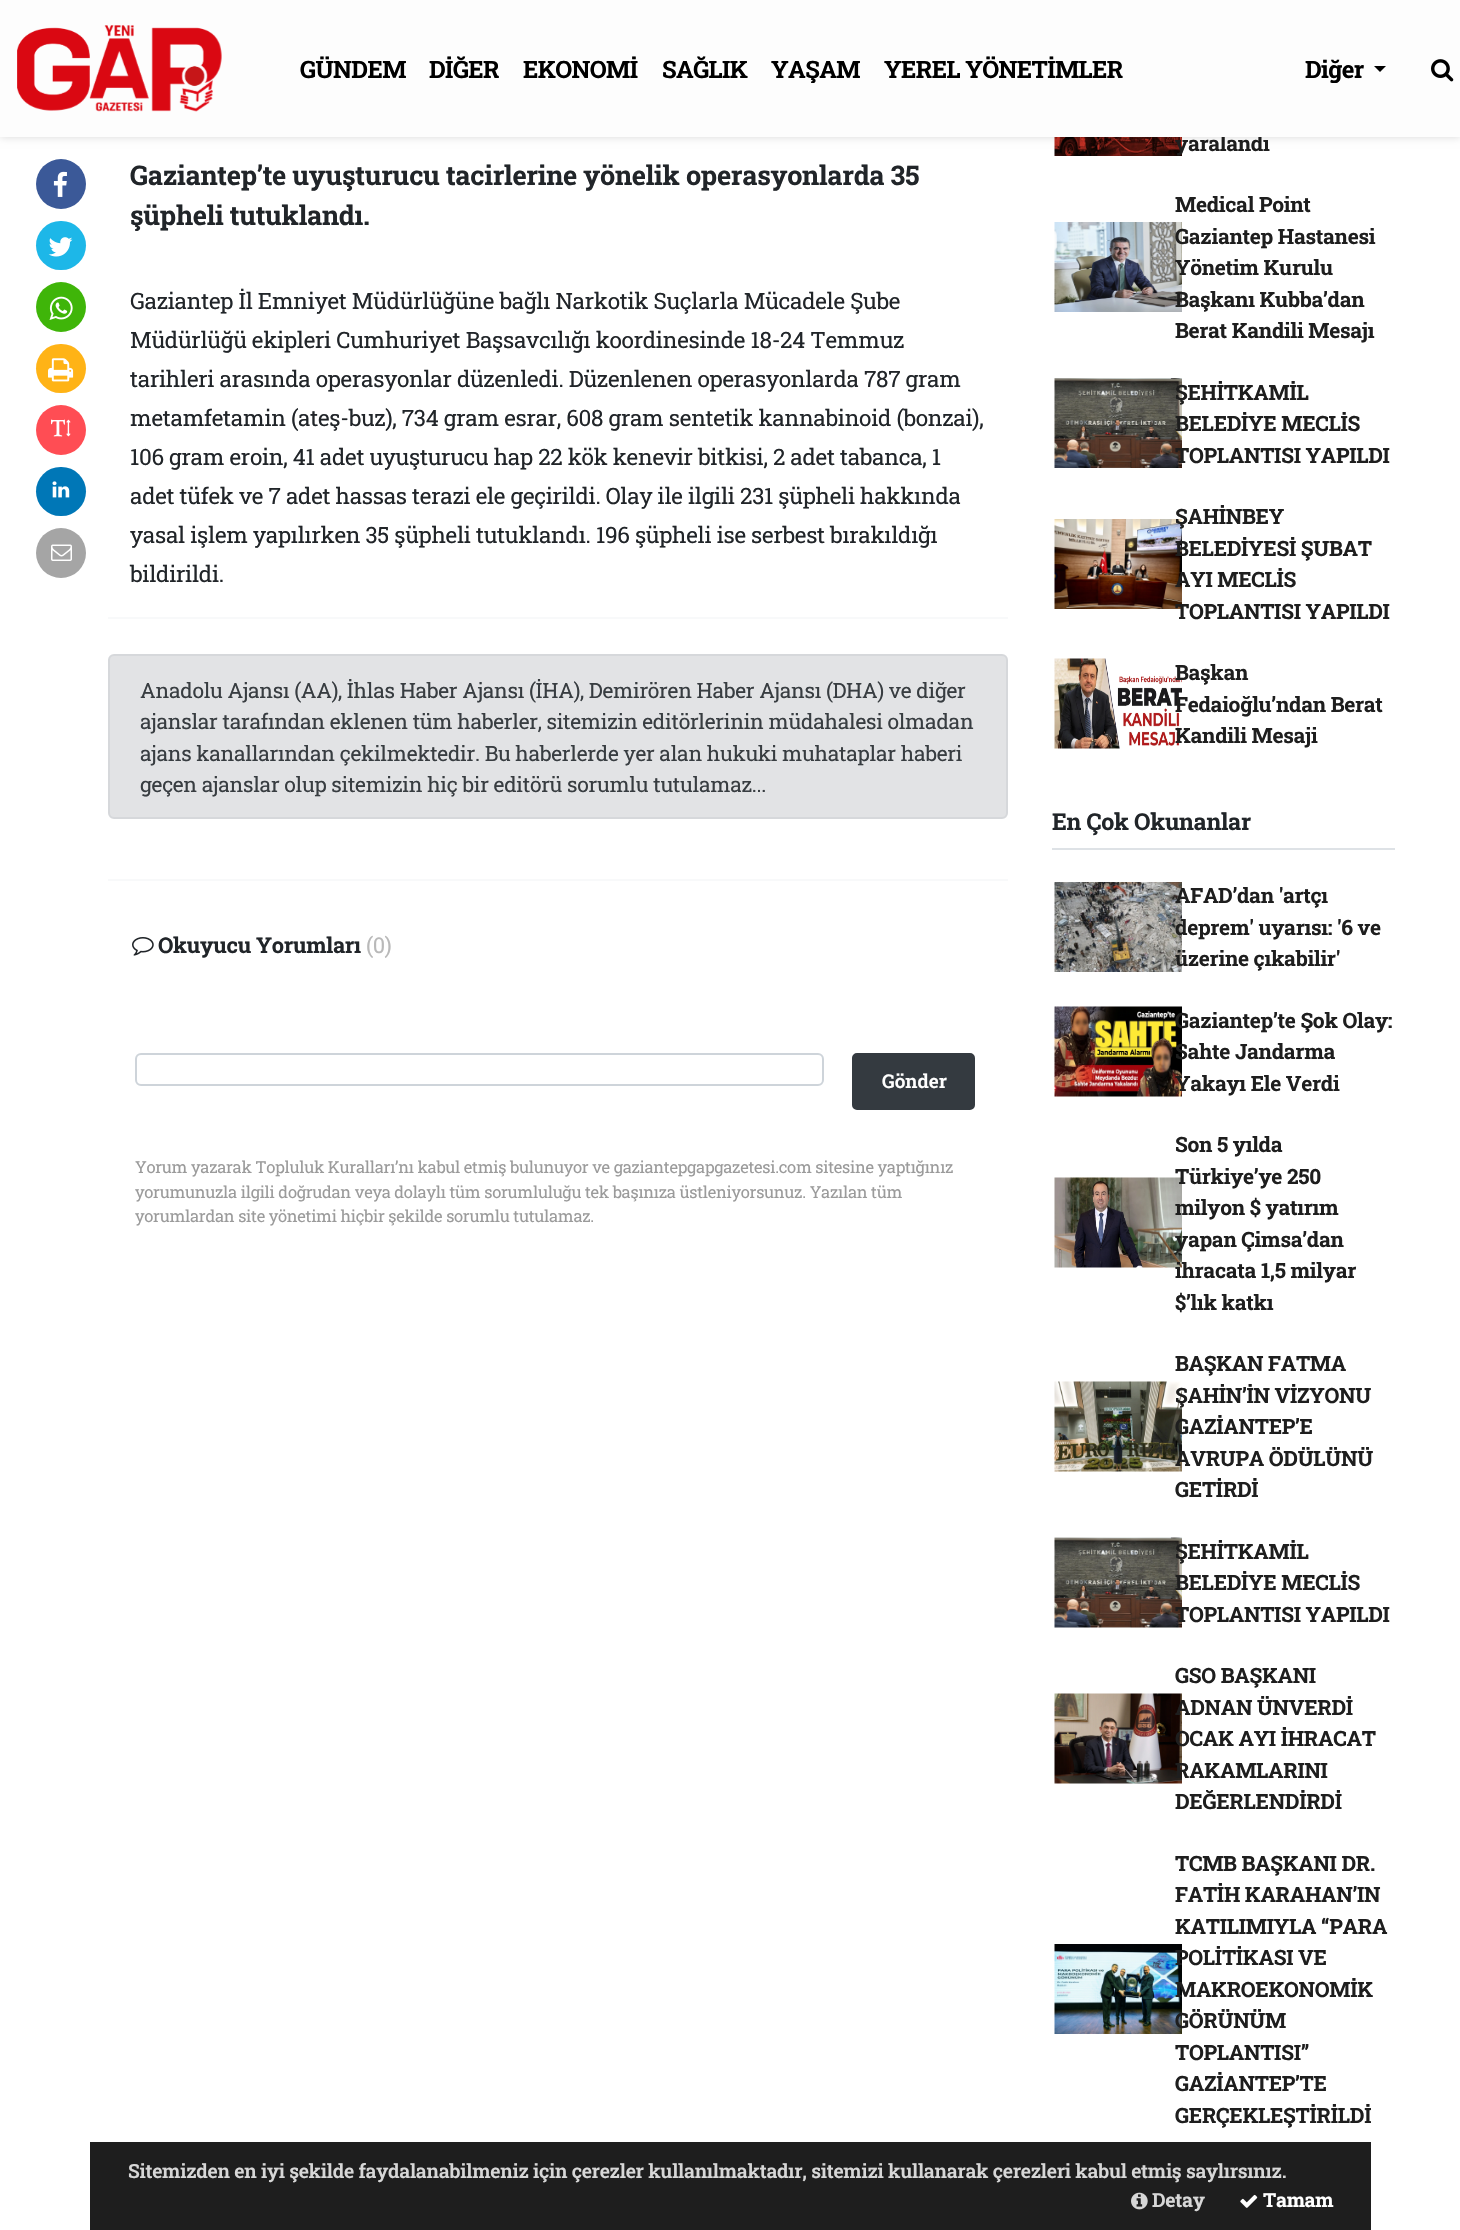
void draw(SkCanvas* canvas) {
	SkPaint paint;
	paint.setAntiAlias(true);
	auto spacedText = [&](const char* s, float x, float y, const SkFont& font, const SkPaint& ink, float letter, float word) {
		std::vector<SkGlyphID> glyphs(font.countText(s, strlen(s), SkTextEncoding::kUTF8));
		std::vector<float> xs(glyphs.size());
		font.textToGlyphs(s, strlen(s), SkTextEncoding::kUTF8, glyphs);
		font.getXPos(glyphs, xs, x);
		float extra = 0;
		for (size_t i = 0; i < glyphs.size(); i++) {
			xs[i] += extra;
			extra += letter + word * (glyphs[i] == font.unicharToGlyph(' '));
		}
		canvas->drawTextBlob(SkTextBlob::MakeFromPosHGlyphs(glyphs, xs, y, font), 0, 0, ink);
	};
	auto svgPath = [&](const char* data, bool evenOdd = false) {
		SkPath result = *SkParsePath::FromSVGString(data);
		if (evenOdd) result.setFillType(SkPathFillType::kEvenOdd);
		return result;
	};
	canvas->clear(0xffffffff);
	canvas->drawImageRect(SkImages::DeferredFromEncodedData(SkData::MakeFromFileName("img11.png")), SkRect::MakeXYWH(1054, 137, 128, 19), SkSamplingOptions());
	paint.setColor(0x26000000);
	paint.setMaskFilter(SkMaskFilter::MakeBlur(kNormal_SkBlurStyle, 4));
	canvas->drawRect(SkRect::MakeXYWH(0, 0, 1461, 137), paint);
	paint.setMaskFilter(nullptr);
	SkFont f1(fontMgr->matchFamilyStyle("Roboto Slab", SkFontStyle::Bold()), 21);
	f1.setSubpixel(true);
	paint.setColor(0xff1e1e1e);
	spacedText("yaralandı", 1175, 151, f1, paint, -0.29, 0);
	paint.setColor(0xfffdfdfd);
	canvas->drawRect(SkRect::MakeXYWH(0, 0, 1460, 137), paint);
	canvas->drawImageRect(SkImages::DeferredFromEncodedData(SkData::MakeFromFileName("img1.png")), SkRect::MakeXYWH(17, 25, 205, 87), SkSamplingOptions());
	SkFont f2(fontMgr->matchFamilyStyle("Roboto Slab", SkFontStyle::Bold()), 24);
	f2.setSubpixel(true);
	paint.setColor(0xff000000);
	spacedText("GÜNDEM", 300, 78, f2, paint, -0.6, 0);
	spacedText("DİĞER", 429, 78, f2, paint, -0.6, 0);
	spacedText("EKONOMİ", 523, 78, f2, paint, -0.6, 0);
	spacedText("SAĞLIK", 662, 78, f2, paint, -0.6, 0);
	canvas->save();
	canvas->clipRect(SkRect::MakeXYWH(276, 53, 1005, 30));
	spacedText("YAŞAM", 771, 78, f2, paint, -0.6, 0);
	canvas->restore();
	spacedText("YEREL YÖNETİMLER", 884, 78, f2, paint, -0.6, 0);
	spacedText("Diğer", 1305, 78, f2, paint, -0.6, 0);
	canvas->drawPath(svgPath("M1374 66H1386L1380 72Z"), paint);
	canvas->drawImageRect(SkImages::DeferredFromEncodedData(SkData::MakeFromFileName("img2.png")), SkRect::MakeXYWH(1431, 59, 23, 23), SkSamplingOptions());
	paint.setColor(0xff3b5998);
	canvas->drawCircle(61, 184, 25, paint);
	canvas->drawImageRect(SkImages::DeferredFromEncodedData(SkData::MakeFromFileName("img3.png")), SkRect::MakeXYWH(53, 171, 14, 26), SkSamplingOptions());
	paint.setColor(0xff1db7e8);
	canvas->drawRoundRect(SkRect::MakeXYWH(36, 221, 50, 49), 24.5, 24.5, paint);
	canvas->drawImageRect(SkImages::DeferredFromEncodedData(SkData::MakeFromFileName("img4.png")), SkRect::MakeXYWH(48, 237, 25, 20), SkSamplingOptions());
	paint.setColor(0xff3fb509);
	canvas->drawCircle(61, 307, 25, paint);
	canvas->drawImageRect(SkImages::DeferredFromEncodedData(SkData::MakeFromFileName("img5.png")), SkRect::MakeXYWH(49, 296, 24, 24), SkSamplingOptions());
	paint.setColor(0xffffb316);
	canvas->drawRoundRect(SkRect::MakeXYWH(36, 344, 50, 49), 24.5, 24.5, paint);
	canvas->drawImageRect(SkImages::DeferredFromEncodedData(SkData::MakeFromFileName("img6.png")), SkRect::MakeXYWH(48, 358, 26, 24), SkSamplingOptions());
	paint.setColor(0xffff4d54);
	canvas->drawCircle(61, 430, 25, paint);
	canvas->drawImageRect(SkImages::DeferredFromEncodedData(SkData::MakeFromFileName("img7.png")), SkRect::MakeXYWH(51, 419, 20, 18), SkSamplingOptions());
	paint.setColor(0xff0077b7);
	canvas->drawRoundRect(SkRect::MakeXYWH(36, 467, 50, 49), 24.5, 24.5, paint);
	canvas->drawImageRect(SkImages::DeferredFromEncodedData(SkData::MakeFromFileName("img8.png")), SkRect::MakeXYWH(52, 481, 18, 17), SkSamplingOptions());
	paint.setColor(0xffa5a5a5);
	canvas->drawCircle(61, 553, 25, paint);
	canvas->drawImageRect(SkImages::DeferredFromEncodedData(SkData::MakeFromFileName("img9.png")), SkRect::MakeXYWH(51, 544, 21, 17), SkSamplingOptions());
	SkFont f3(fontMgr->matchFamilyStyle("Roboto Slab", SkFontStyle::Bold()), 27);
	f3.setSubpixel(true);
	paint.setColor(0xff212529);
	spacedText("Gaziantep’te uyuşturucu tacirlerine yönelik operasyonlarda 35", 130, 185, f3, paint, -0.29, 0);
	spacedText("şüpheli tutuklandı.", 130, 225, f3, paint, -0.29, 0);
	SkFont f4(fontMgr->matchFamilyStyle("Roboto Slab", SkFontStyle::Normal()), 22.5);
	f4.setSubpixel(true);
	spacedText("Gaziantep İl Emniyet Müdürlüğüne bağlı Narkotik Suçlarla Mücadele Şube", 130, 309, f4, paint, -0.29, 0);
	spacedText("Müdürlüğü ekipleri Cumhuriyet Başsavcılığı koordinesinde 18-24 Temmuz", 130, 348, f4, paint, -0.29, 0);
	spacedText("tarihleri arasında operasyonlar düzenledi. Düzenlenen operasyonlarda 787 gram", 130, 387, f4, paint, -0.29, 0);
	spacedText("metamfetamin (ateş-buz), 734 gram esrar, 608 gram sentetik kannabinoid (bonzai),", 130, 426, f4, paint, -0.29, 0);
	spacedText("106 gram eroin, 41 adet uyuşturucu hap 22 kök kenevir bitkisi, 2 adet tabanca, 1", 130, 465, f4, paint, -0.29, 0);
	spacedText("adet tüfek ve 7 adet hassas terazi ele geçirildi. Olay ile ilgili 231 şüpheli hakkında", 130, 504, f4, paint, -0.29, 0);
	spacedText("yasal işlem yapılırken 35 şüpheli tutuklandı. 196 şüpheli ise serbest bırakıldığı", 130, 543, f4, paint, -0.29, 0);
	spacedText("bildirildi.", 130, 582, f4, paint, -0.29, 0);
	paint.setColor(0xfff8f9fa);
	canvas->drawRect(SkRect::MakeXYWH(108, 617, 900, 2), paint);
	paint.setColor(0xffe2e3e5);
	canvas->drawRoundRect(SkRect::MakeXYWH(109, 655, 898, 163), 5, 5, paint);
	paint.setStroke(true);
	paint.setStrokeWidth(2);
	paint.setColor(0xffd6d8db);
	canvas->drawRoundRect(SkRect::MakeXYWH(109, 655, 898, 163), 5, 5, paint);
	SkFont f5(fontMgr->matchFamilyStyle("Roboto Slab", SkFontStyle::Normal()), 21);
	f5.setSubpixel(true);
	paint.setStroke(false);
	paint.setColor(0xff383d41);
	spacedText("Anadolu Ajansı (AA), İhlas Haber Ajansı (İHA), Demirören Haber Ajansı (DHA) ve diğer", 140, 698, f5, paint, -0.29, 0);
	spacedText("ajanslar tarafından eklenen tüm haberler, sitemizin editörlerinin müdahalesi olmadan", 140, 729, f5, paint, -0.29, 0);
	spacedText("ajans kanallarından çekilmektedir. Bu haberlerde yer alan hukuki muhataplar haberi", 140, 761, f5, paint, -0.29, 0);
	spacedText("geçen ajanslar olup sitemizin hiç bir editörü sorumlu tutulamaz...", 140, 792, f5, paint, -0.29, 0);
	paint.setColor(0xfff8f9fa);
	canvas->drawRect(SkRect::MakeXYWH(108, 879, 900, 2), paint);
	canvas->drawImageRect(SkImages::DeferredFromEncodedData(SkData::MakeFromFileName("img10.png")), SkRect::MakeXYWH(132, 937, 22, 19), SkSamplingOptions());
	SkFont f6(fontMgr->matchFamilyStyle("Roboto Slab", SkFontStyle::Bold()), 21.75);
	f6.setSubpixel(true);
	paint.setColor(0xff212529);
	spacedText("Okuyucu Yorumları", 158, 953, f6, paint, -0.29, 0);
	SkFont f7(fontMgr->matchFamilyStyle("Roboto Slab", SkFontStyle::Normal()), 21.75);
	f7.setSubpixel(true);
	paint.setColor(0xffb9b9b9);
	spacedText("(0)", 366, 953, f7, paint, -0.29, 0);
	paint.setStroke(true);
	paint.setColor(0xffced4da);
	canvas->drawRoundRect(SkRect::MakeXYWH(136, 1054, 687, 31), 5, 5, paint);
	paint.setStroke(false);
	paint.setColor(0xff343a40);
	canvas->drawRoundRect(SkRect::MakeXYWH(853, 1054, 121, 55), 4, 4, paint);
	paint.setStroke(true);
	canvas->drawRoundRect(SkRect::MakeXYWH(853, 1054, 121, 55), 4, 4, paint);
	SkFont f8(fontMgr->matchFamilyStyle("Roboto Slab", SkFontStyle(600, SkFontStyle::kNormal_Width, SkFontStyle::kUpright_Slant)), 19);
	f8.setSubpixel(true);
	paint.setStroke(false);
	paint.setColor(0xffffffff);
	canvas->drawString("Gönder", 882, 1088, f8, paint);
	SkFont f9(fontMgr->matchFamilyStyle("Roboto Slab", SkFontStyle::Normal()), 16.5);
	f9.setSubpixel(true);
	paint.setColor(0xff9b9b9b);
	spacedText("Yorum yazarak Topluluk Kuralları’nı kabul etmiş bulunuyor ve gaziantepgapgazetesi.com sitesine yaptığınız", 135, 1173, f9, paint, -0.29, 0);
	spacedText("yorumunuzla ilgili doğrudan veya dolaylı tüm sorumluluğu tek başınıza üstleniyorsunuz. Yazılan tüm", 135, 1198, f9, paint, -0.29, 0);
	spacedText("yorumlardan site yönetimi hiçbir şekilde sorumlu tutulamaz.", 135, 1222, f9, paint, -0.29, 0);
	canvas->drawImageRect(SkImages::DeferredFromEncodedData(SkData::MakeFromFileName("img12.png")), SkRect::MakeXYWH(1054, 222, 128, 90), SkSamplingOptions());
	paint.setColor(0xff1e1e1e);
	spacedText("Medical Point", 1175, 212, f1, paint, -0.29, 0);
	spacedText("Gaziantep Hastanesi", 1175, 244, f1, paint, -0.29, 0);
	spacedText("Yönetim Kurulu", 1175, 275, f1, paint, -0.29, 0);
	spacedText("Başkanı Kubba’dan", 1175, 307, f1, paint, -0.29, 0);
	spacedText("Berat Kandili Mesajı", 1175, 338, f1, paint, -0.29, 0);
	canvas->drawImageRect(SkImages::DeferredFromEncodedData(SkData::MakeFromFileName("img13.png")), SkRect::MakeXYWH(1054, 378, 128, 90), SkSamplingOptions());
	spacedText("ŞEHİTKAMİL", 1175, 400, f1, paint, -0.29, 0);
	spacedText("BELEDİYE MECLİS", 1175, 431, f1, paint, -0.29, 0);
	spacedText("TOPLANTISI YAPILDI", 1175, 463, f1, paint, -0.29, 0);
	canvas->drawImageRect(SkImages::DeferredFromEncodedData(SkData::MakeFromFileName("img14.png")), SkRect::MakeXYWH(1054, 519, 128, 90), SkSamplingOptions());
	spacedText("ŞAHİNBEY", 1175, 524, f1, paint, -0.29, 0);
	spacedText("BELEDİYESİ ŞUBAT", 1175, 556, f1, paint, -0.29, 0);
	spacedText("AYI MECLİS", 1175, 587, f1, paint, -0.29, 0);
	spacedText("TOPLANTISI YAPILDI", 1175, 619, f1, paint, -0.29, 0);
	canvas->drawImageRect(SkImages::DeferredFromEncodedData(SkData::MakeFromFileName("img15.png")), SkRect::MakeXYWH(1054, 658, 128, 91), SkSamplingOptions());
	spacedText("Başkan", 1175, 680, f1, paint, -0.29, 0);
	spacedText("Fedaioğlu’ndan Berat", 1175, 712, f1, paint, -0.29, 0);
	spacedText("Kandili Mesaji", 1175, 743, f1, paint, -0.29, 0);
	paint.setColor(0xffdee2e6);
	canvas->drawRect(SkRect::MakeXYWH(1052, 848, 343, 2), paint);
	SkFont f10(fontMgr->matchFamilyStyle("Roboto Slab", SkFontStyle::Bold()), 23.25);
	f10.setSubpixel(true);
	paint.setColor(0xff212529);
	spacedText("En Çok Okunanlar", 1052, 830, f10, paint, -0.29, 0);
	canvas->drawImageRect(SkImages::DeferredFromEncodedData(SkData::MakeFromFileName("img16.png")), SkRect::MakeXYWH(1054, 882, 128, 90), SkSamplingOptions());
	paint.setColor(0xff1e1e1e);
	spacedText("AFAD’dan 'artçı", 1175, 903, f1, paint, -0.29, 0);
	spacedText("deprem' uyarısı: '6 ve", 1175, 935, f1, paint, -0.29, 0);
	spacedText("üzerine çıkabilir'", 1175, 966, f1, paint, -0.29, 0);
	canvas->drawImageRect(SkImages::DeferredFromEncodedData(SkData::MakeFromFileName("img17.png")), SkRect::MakeXYWH(1054, 1006, 128, 91), SkSamplingOptions());
	spacedText("Gaziantep’te Şok Olay:", 1175, 1028, f1, paint, -0.29, 0);
	spacedText("Sahte Jandarma", 1175, 1059, f1, paint, -0.29, 0);
	spacedText("Yakayı Ele Verdi", 1175, 1091, f1, paint, -0.29, 0);
	canvas->drawImageRect(SkImages::DeferredFromEncodedData(SkData::MakeFromFileName("img18.png")), SkRect::MakeXYWH(1054, 1177, 128, 91), SkSamplingOptions());
	spacedText("Son 5 yılda", 1175, 1152, f1, paint, -0.29, 0);
	spacedText("Türkiye’ye 250", 1175, 1184, f1, paint, -0.29, 0);
	spacedText("milyon $ yatırım", 1175, 1215, f1, paint, -0.29, 0);
	spacedText("yapan Çimsa’dan", 1175, 1247, f1, paint, -0.29, 0);
	spacedText("ihracata 1,5 milyar", 1175, 1278, f1, paint, -0.29, 0);
	spacedText("$’lık katkı", 1175, 1310, f1, paint, -0.29, 0);
	canvas->drawImageRect(SkImages::DeferredFromEncodedData(SkData::MakeFromFileName("img19.png")), SkRect::MakeXYWH(1054, 1381, 128, 91), SkSamplingOptions());
	spacedText("BAŞKAN FATMA", 1175, 1371, f1, paint, -0.29, 0);
	spacedText("ŞAHİN’İN VİZYONU", 1175, 1403, f1, paint, -0.29, 0);
	spacedText("GAZİANTEP’E", 1175, 1434, f1, paint, -0.29, 0);
	spacedText("AVRUPA ÖDÜLÜNÜ", 1175, 1466, f1, paint, -0.29, 0);
	spacedText("GETİRDİ", 1175, 1497, f1, paint, -0.29, 0);
	canvas->drawImageRect(SkImages::DeferredFromEncodedData(SkData::MakeFromFileName("img20.png")), SkRect::MakeXYWH(1054, 1537, 128, 91), SkSamplingOptions());
	spacedText("ŞEHİTKAMİL", 1175, 1559, f1, paint, -0.29, 0);
	spacedText("BELEDİYE MECLİS", 1175, 1590, f1, paint, -0.29, 0);
	spacedText("TOPLANTISI YAPILDI", 1175, 1622, f1, paint, -0.29, 0);
	canvas->drawImageRect(SkImages::DeferredFromEncodedData(SkData::MakeFromFileName("img21.png")), SkRect::MakeXYWH(1054, 1693, 128, 91), SkSamplingOptions());
	spacedText("GSO BAŞKANI", 1175, 1683, f1, paint, -0.29, 0);
	spacedText("ADNAN ÜNVERDİ", 1175, 1715, f1, paint, -0.29, 0);
	spacedText("OCAK AYI İHRACAT", 1175, 1746, f1, paint, -0.29, 0);
	spacedText("RAKAMLARINI", 1175, 1778, f1, paint, -0.29, 0);
	spacedText("DEĞERLENDİRDİ", 1175, 1809, f1, paint, -0.29, 0);
	canvas->drawImageRect(SkImages::DeferredFromEncodedData(SkData::MakeFromFileName("img22.png")), SkRect::MakeXYWH(1054, 1944, 128, 90), SkSamplingOptions());
	spacedText("TCMB BAŞKANI DR.", 1175, 1871, f1, paint, -0.29, 0);
	spacedText("FATİH KARAHAN’IN", 1175, 1902, f1, paint, -0.29, 0);
	spacedText("KATILIMIYLA “PARA", 1175, 1934, f1, paint, -0.29, 0);
	spacedText("POLİTİKASI VE", 1175, 1965, f1, paint, -0.29, 0);
	spacedText("MAKROEKONOMİK", 1175, 1997, f1, paint, -0.29, 0);
	spacedText("GÖRÜNÜM", 1175, 2028, f1, paint, -0.29, 0);
	spacedText("TOPLANTISI”", 1175, 2060, f1, paint, -0.29, 0);
	spacedText("GAZİANTEP’TE", 1175, 2091, f1, paint, -0.29, 0);
	spacedText("GERÇEKLEŞTİRİLDİ", 1175, 2123, f1, paint, -0.29, 0);
	canvas->drawRect(SkRect::MakeXYWH(90, 2142, 1281, 88), paint);
	SkFont f11(fontMgr->matchFamilyStyle("Roboto Slab", SkFontStyle(600, SkFontStyle::kNormal_Width, SkFontStyle::kUpright_Slant)), 19.5);
	f11.setSubpixel(true);
	paint.setColor(0xffd7d7d7);
	spacedText("Sitemizden en iyi şekilde faydalanabilmeniz için çerezler kullanılmaktadır, sitemizi kullanarak çerezleri kabul etmiş saylırsınız.", 128, 2178, f11, paint, -0.29, 0);
	canvas->drawImageRect(SkImages::DeferredFromEncodedData(SkData::MakeFromFileName("img23.png")), SkRect::MakeXYWH(1131, 2192, 17, 18), SkSamplingOptions());
	SkFont f12(fontMgr->matchFamilyStyle("Roboto Slab", SkFontStyle::Bold()), 19.5);
	f12.setSubpixel(true);
	spacedText("Detay", 1152, 2207, f12, paint, -0.29, 0);
	canvas->drawImageRect(SkImages::DeferredFromEncodedData(SkData::MakeFromFileName("img24.png")), SkRect::MakeXYWH(1240, 2194, 18, 14), SkSamplingOptions());
	paint.setColor(0xffffffff);
	spacedText("Tamam", 1263, 2207, f12, paint, -0.29, 0);
}
